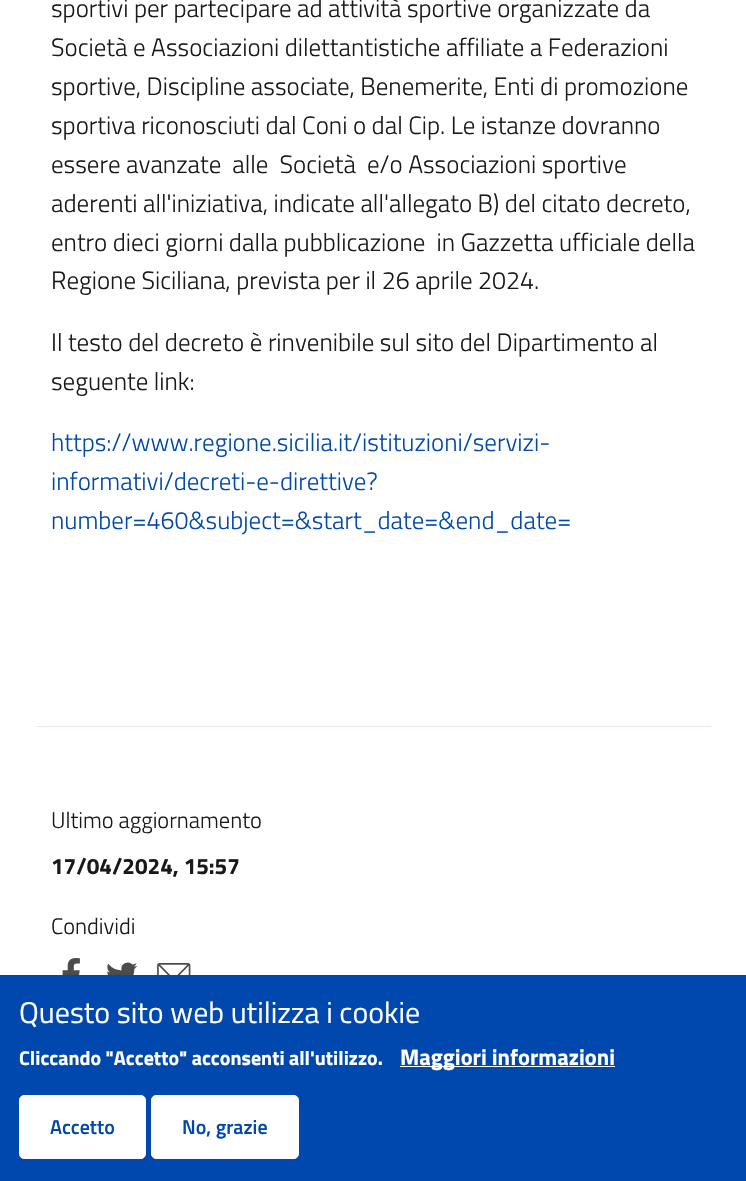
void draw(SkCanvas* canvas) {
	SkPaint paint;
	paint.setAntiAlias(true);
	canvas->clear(0xffffffff);
	SkFont f1(fontMgr->matchFamilyStyle("Titillium Web", SkFontStyle(300, SkFontStyle::kNormal_Width, SkFontStyle::kUpright_Slant)), 25);
	f1.setSubpixel(true);
	paint.setColor(0xff19191a);
	canvas->drawString("sportivi per partecipare ad attività sportive organizzate da", 51, 17, f1, paint);
	canvas->drawString("Società e Associazioni dilettantistiche affiliate a Federazioni", 51, 56, f1, paint);
	canvas->drawString("sportive, Discipline associate, Benemerite, Enti di promozione", 51, 95, f1, paint);
	canvas->drawString("sportiva riconosciuti dal Coni o dal Cip. Le istanze dovranno", 51, 134, f1, paint);
	canvas->drawString("essere avanzate  alle  Società  e/o Associazioni sportive", 51, 173, f1, paint);
	canvas->drawString("aderenti all'iniziativa, indicate all'allegato B) del citato decreto,", 51, 212, f1, paint);
	canvas->drawString("entro dieci giorni dalla pubblicazione  in Gazzetta ufficiale della", 51, 251, f1, paint);
	canvas->drawString("Regione Siciliana, prevista per il 26 aprile 2024.", 51, 289, f1, paint);
	canvas->drawString("Il testo del decreto è rinvenibile sul sito del Dipartimento al", 51, 351, f1, paint);
	canvas->drawString("seguente link:", 51, 390, f1, paint);
	paint.setColor(0xff0048ad);
	canvas->drawString("https://www.regione.sicilia.it/istituzioni/servizi-", 51, 451, f1, paint);
	canvas->drawString("informativi/decreti-e-direttive?", 51, 490, f1, paint);
	canvas->drawString("number=460&subject=&start_date=&end_date=", 51, 529, f1, paint);
	paint.setColor(0xffe9e6f2);
	canvas->drawRect(SkRect::MakeXYWH(36, 726, 675, 1), paint);
	SkFont f2(fontMgr->matchFamilyStyle("Titillium Web", SkFontStyle(300, SkFontStyle::kNormal_Width, SkFontStyle::kUpright_Slant)), 22.5);
	f2.setSubpixel(true);
	paint.setColor(0xff19191a);
	canvas->drawString("Ultimo aggiornamento", 51, 828, f2, paint);
	SkFont f3(fontMgr->matchFamilyStyle("Titillium Web", SkFontStyle::Bold()), 22.5);
	f3.setSubpixel(true);
	canvas->drawString("17/04/2024, 15:57", 51, 874, f3, paint);
	canvas->drawString("Condividi", 51, 934, f2, paint);
	canvas->drawImageRect(SkImages::DeferredFromEncodedData(SkData::MakeFromFileName("img1.png")), SkRect::MakeXYWH(62, 958, 18, 17), SkSamplingOptions());
	canvas->drawImageRect(SkImages::DeferredFromEncodedData(SkData::MakeFromFileName("img2.png")), SkRect::MakeXYWH(107, 962, 31, 13), SkSamplingOptions());
	canvas->drawImageRect(SkImages::DeferredFromEncodedData(SkData::MakeFromFileName("img3.png")), SkRect::MakeXYWH(157, 963, 34, 12), SkSamplingOptions());
	paint.setColor(0xff0048ad);
	canvas->drawRect(SkRect::MakeXYWH(0, 975, 746, 206), paint);
	SkFont f4(fontMgr->matchFamilyStyle("Titillium Web", SkFontStyle::Normal()), 30);
	f4.setSubpixel(true);
	paint.setColor(0xffffffff);
	canvas->drawString("Questo sito web utilizza i cookie", 19, 1023, f4, paint);
	SkFont f5(fontMgr->matchFamilyStyle("Titillium Web", SkFontStyle::Bold()), 20);
	f5.setSubpixel(true);
	canvas->drawString("Cliccando \"Accetto\" acconsenti all'utilizzo.", 19, 1065, f5, paint);
	canvas->drawRect(SkRect::MakeXYWH(400, 1066, 215, 1), paint);
	canvas->drawString("Maggiori informazioni", 400, 1065, f3, paint);
	canvas->drawRoundRect(SkRect::MakeXYWH(19.5, 1095.5, 126, 63), 4.5, 4.5, paint);
	paint.setStroke(true);
	paint.setStrokeWidth(1);
	canvas->drawRoundRect(SkRect::MakeXYWH(19.5, 1095.5, 126, 63), 4.5, 4.5, paint);
	SkFont f6(fontMgr->matchFamilyStyle("Titillium Web", SkFontStyle(600, SkFontStyle::kNormal_Width, SkFontStyle::kUpright_Slant)), 20);
	f6.setSubpixel(true);
	paint.setStroke(false);
	paint.setColor(0xff0048ad);
	canvas->drawString("Accetto", 50, 1134, f6, paint);
	paint.setColor(0xffffffff);
	canvas->drawRoundRect(SkRect::MakeXYWH(151.5, 1095.5, 147, 63), 4.5, 4.5, paint);
	paint.setStroke(true);
	canvas->drawRoundRect(SkRect::MakeXYWH(151.5, 1095.5, 147, 63), 4.5, 4.5, paint);
	paint.setStroke(false);
	paint.setColor(0xff0048ad);
	canvas->drawString("No, grazie", 182, 1134, f6, paint);
}
